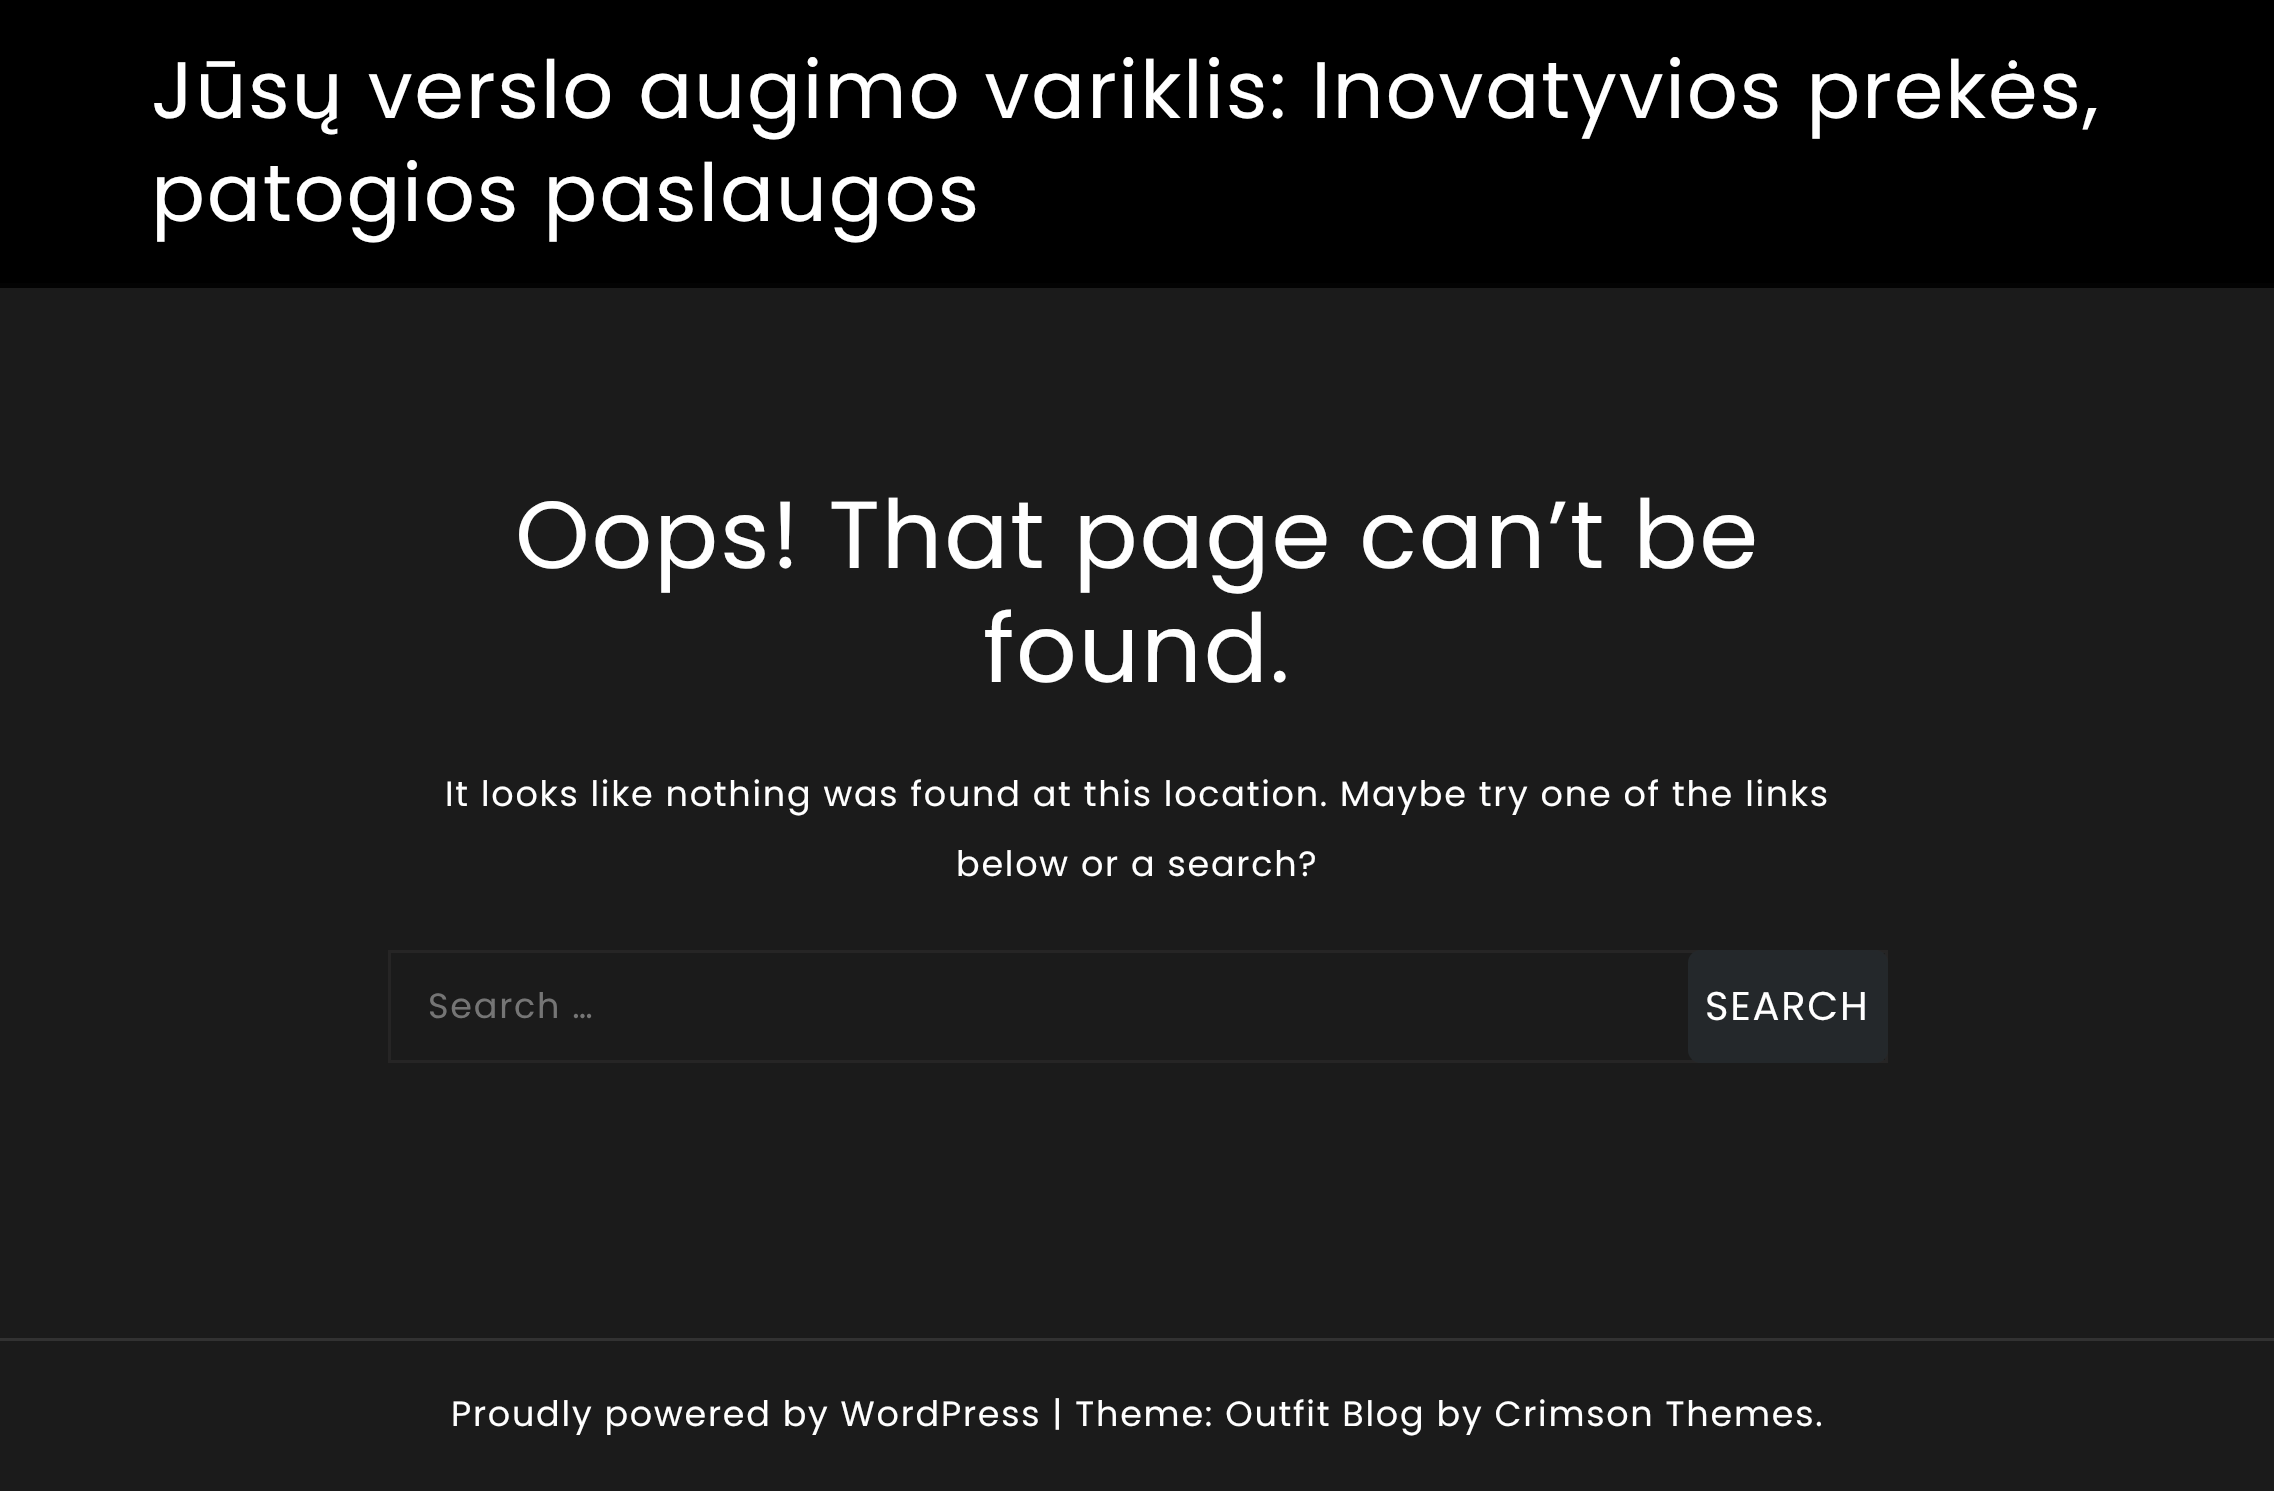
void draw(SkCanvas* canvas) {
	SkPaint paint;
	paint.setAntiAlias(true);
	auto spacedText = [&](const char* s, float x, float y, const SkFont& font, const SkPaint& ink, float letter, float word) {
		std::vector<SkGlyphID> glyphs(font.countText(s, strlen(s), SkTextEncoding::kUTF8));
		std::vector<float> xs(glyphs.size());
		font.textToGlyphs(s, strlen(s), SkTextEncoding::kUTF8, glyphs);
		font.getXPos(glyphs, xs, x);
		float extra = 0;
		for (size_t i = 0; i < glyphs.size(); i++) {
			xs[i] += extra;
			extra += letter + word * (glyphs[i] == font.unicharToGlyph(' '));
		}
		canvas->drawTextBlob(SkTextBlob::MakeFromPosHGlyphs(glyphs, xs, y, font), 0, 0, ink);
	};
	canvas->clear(0xff1b1b1b);
	paint.setColor(0xff000000);
	canvas->drawRect(SkRect::MakeXYWH(0, 0, 2274, 283), paint);
	paint.setColor(0xff030303);
	canvas->drawRect(SkRect::MakeXYWH(0, 283, 2274, 5), paint);
	SkFont f1(fontMgr->matchFamilyStyle("Poppins", SkFontStyle::Normal()), 80);
	f1.setSubpixel(true);
	paint.setColor(0xffffffff);
	spacedText("Jūsų verslo augimo variklis: Inovatyvios prekės,", 151, 118, f1, paint, 1.75, 0);
	spacedText("patogios paslaugos", 151, 221, f1, paint, 1.75, 0);
	SkFont f2(fontMgr->matchFamilyStyle("Poppins", SkFontStyle::Normal()), 95);
	f2.setSubpixel(true);
	spacedText("Oops! That page can’t be", 515, 568, f2, paint, 1.75, 0);
	spacedText("found.", 983, 682, f2, paint, 1.75, 0);
	SkFont f3(fontMgr->matchFamilyStyle("Poppins", SkFontStyle::Normal()), 35);
	f3.setSubpixel(true);
	spacedText("It looks like nothing was found at this location. Maybe try one of the links", 445, 806, f3, paint, 1.75, 0);
	spacedText("below or a search?", 956, 876, f3, paint, 1.75, 0);
	paint.setStroke(true);
	paint.setStrokeWidth(3);
	paint.setColor(0xff262525);
	canvas->drawRect(SkRect::MakeXYWH(389.5, 951.5, 1497, 110), paint);
	paint.setStroke(false);
	paint.setColor(0xff757575);
	spacedText("Search …", 428, 1018, f3, paint, 1.75, 0);
	paint.setColor(0xff24282b);
	canvas->drawRoundRect(SkRect::MakeXYWH(1688, 950, 200, 113), 13, 13, paint);
	SkFont f4(fontMgr->matchFamilyStyle("Poppins", SkFontStyle::Normal()), 40);
	f4.setSubpixel(true);
	paint.setColor(0xffffffff);
	spacedText("SEARCH", 1705, 1020, f4, paint, 1.75, 0);
	paint.setColor(0xff323232);
	canvas->drawRect(SkRect::MakeXYWH(0, 1338, 2274, 3), paint);
	paint.setColor(0xffffffff);
	spacedText("Proudly powered by WordPress | Theme: Outfit Blog by Crimson Themes.", 451, 1426, f3, paint, 1.75, 0);
}
